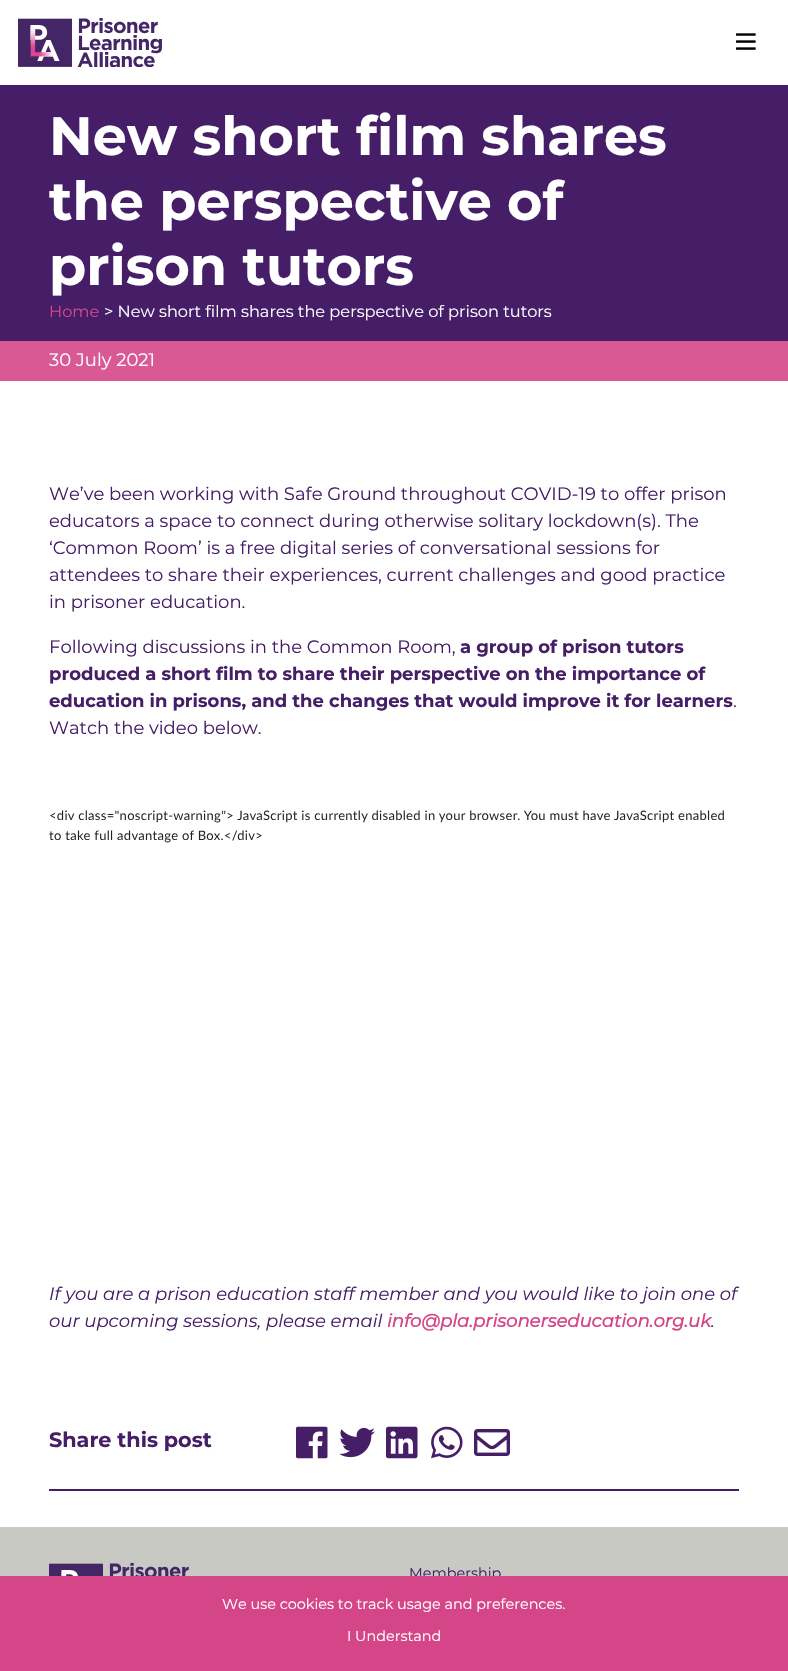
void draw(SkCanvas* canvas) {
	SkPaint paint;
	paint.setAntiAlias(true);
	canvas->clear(0xffffffff);
	paint.setColor(0xff461e67);
	canvas->drawRect(SkRect::MakeXYWH(0, 85, 788, 256), paint);
	canvas->drawImageRect(SkImages::DeferredFromEncodedData(SkData::MakeFromFileName("img1.png")), SkRect::MakeXYWH(18, 18, 144, 49), SkSamplingOptions());
	canvas->drawImageRect(SkImages::DeferredFromEncodedData(SkData::MakeFromFileName("img2.png")), SkRect::MakeXYWH(736, 33, 20, 17), SkSamplingOptions());
	SkFont f1(fontMgr->matchFamilyStyle("Montserrat", SkFontStyle::Bold()), 54);
	f1.setSubpixel(true);
	paint.setColor(0xffffffff);
	canvas->drawString("New short film shares", 49, 155, f1, paint);
	canvas->drawString("the perspective of", 49, 220, f1, paint);
	canvas->drawString("prison tutors", 49, 285, f1, paint);
	SkFont f2(fontMgr->matchFamilyStyle("Montserrat", SkFontStyle::Normal()), 16.2);
	f2.setSubpixel(true);
	paint.setColor(0xffd54688);
	canvas->drawString("Home", 49, 317, f2, paint);
	paint.setColor(0xffffffff);
	canvas->drawString("> New short film shares the perspective of prison tutors", 104, 317, f2, paint);
	paint.setColor(0xffd95994);
	canvas->drawRect(SkRect::MakeXYWH(0, 341, 788, 40), paint);
	SkFont f3(fontMgr->matchFamilyStyle("Montserrat", SkFontStyle::Normal()), 18);
	f3.setSubpixel(true);
	paint.setColor(0xffffffff);
	canvas->drawString("30 July 2021", 49, 366, f3, paint);
	paint.setColor(0xff461e67);
	canvas->drawString("We’ve been working with Safe Ground throughout COVID-19 to offer prison", 49, 500, f3, paint);
	canvas->drawString("educators a space to connect during otherwise solitary lockdown(s). The", 49, 527, f3, paint);
	canvas->drawString("‘Common Room’ is a free digital series of conversational sessions for", 49, 554, f3, paint);
	canvas->drawString("attendees to share their experiences, current challenges and good practice", 49, 581, f3, paint);
	canvas->drawString("in prisoner education.", 49, 608, f3, paint);
	canvas->drawString("Following discussions in the Common Room,", 49, 653, f3, paint);
	SkFont f4(fontMgr->matchFamilyStyle("Montserrat", SkFontStyle::Bold()), 18);
	f4.setSubpixel(true);
	canvas->drawString("a group of prison tutors", 460, 653, f4, paint);
	canvas->drawString("produced a short film to share their perspective on the importance of", 49, 680, f4, paint);
	canvas->drawString("education in prisons, and the changes that would improve it for learners", 49, 707, f4, paint);
	canvas->drawString(".", 733, 707, f3, paint);
	canvas->drawString("Watch the video below.", 49, 734, f3, paint);
	canvas->drawImageRect(SkImages::DeferredFromEncodedData(SkData::MakeFromFileName("img3.png")), SkRect::MakeXYWH(49, 810, 675, 33), SkSamplingOptions());
	SkFont f5(fontMgr->matchFamilyStyle("Montserrat", SkFontStyle(100, SkFontStyle::kNormal_Width, SkFontStyle::kItalic_Slant)), 18);
	f5.setSubpixel(true);
	canvas->drawString("If you are a prison education staff member and you would like to join one of", 49, 1300, f5, paint);
	canvas->drawString("our upcoming sessions, please email", 49, 1327, f5, paint);
	SkFont f6(fontMgr->matchFamilyStyle("Montserrat", SkFontStyle::BoldItalic()), 18);
	f6.setSubpixel(true);
	paint.setColor(0xffd54688);
	canvas->drawString("info@pla.prisonerseducation.org.uk", 387, 1327, f6, paint);
	paint.setColor(0xff461e67);
	canvas->drawString(".", 711, 1327, f5, paint);
	SkFont f7(fontMgr->matchFamilyStyle("Montserrat", SkFontStyle::Bold()), 20.75);
	f7.setSubpixel(true);
	canvas->drawString("Share this post", 49, 1447, f7, paint);
	canvas->drawImageRect(SkImages::DeferredFromEncodedData(SkData::MakeFromFileName("img4.png")), SkRect::MakeXYWH(296, 1426, 32, 33), SkSamplingOptions());
	canvas->drawImageRect(SkImages::DeferredFromEncodedData(SkData::MakeFromFileName("img5.png")), SkRect::MakeXYWH(339, 1427, 36, 31), SkSamplingOptions());
	canvas->drawImageRect(SkImages::DeferredFromEncodedData(SkData::MakeFromFileName("img6.png")), SkRect::MakeXYWH(386, 1426, 32, 33), SkSamplingOptions());
	canvas->drawImageRect(SkImages::DeferredFromEncodedData(SkData::MakeFromFileName("img7.png")), SkRect::MakeXYWH(431, 1426, 32, 33), SkSamplingOptions());
	canvas->drawImageRect(SkImages::DeferredFromEncodedData(SkData::MakeFromFileName("img8.png")), SkRect::MakeXYWH(474, 1429, 36, 27), SkSamplingOptions());
	canvas->drawRect(SkRect::MakeXYWH(49, 1489, 690, 2), paint);
	paint.setColor(0xffc8c9c2);
	canvas->drawRect(SkRect::MakeXYWH(0, 1527, 788, 49), paint);
	canvas->drawImageRect(SkImages::DeferredFromEncodedData(SkData::MakeFromFileName("img9.png")), SkRect::MakeXYWH(49, 1563, 140, 13), SkSamplingOptions());
	SkFont f8(fontMgr->matchFamilyStyle("Montserrat", SkFontStyle::Normal()), 14.4);
	f8.setSubpixel(true);
	paint.setColor(0xff461e67);
	canvas->drawString("Membership", 409, 1578, f8, paint);
	paint.setColor(0xffd54688);
	canvas->drawRect(SkRect::MakeXYWH(0, 1576, 788, 95), paint);
	paint.setColor(0xffffffff);
	canvas->drawString("We use cookies to track usage and preferences.", 222, 1609, f8, paint);
	canvas->drawString("I Understand", 347, 1641, f8, paint);
}
